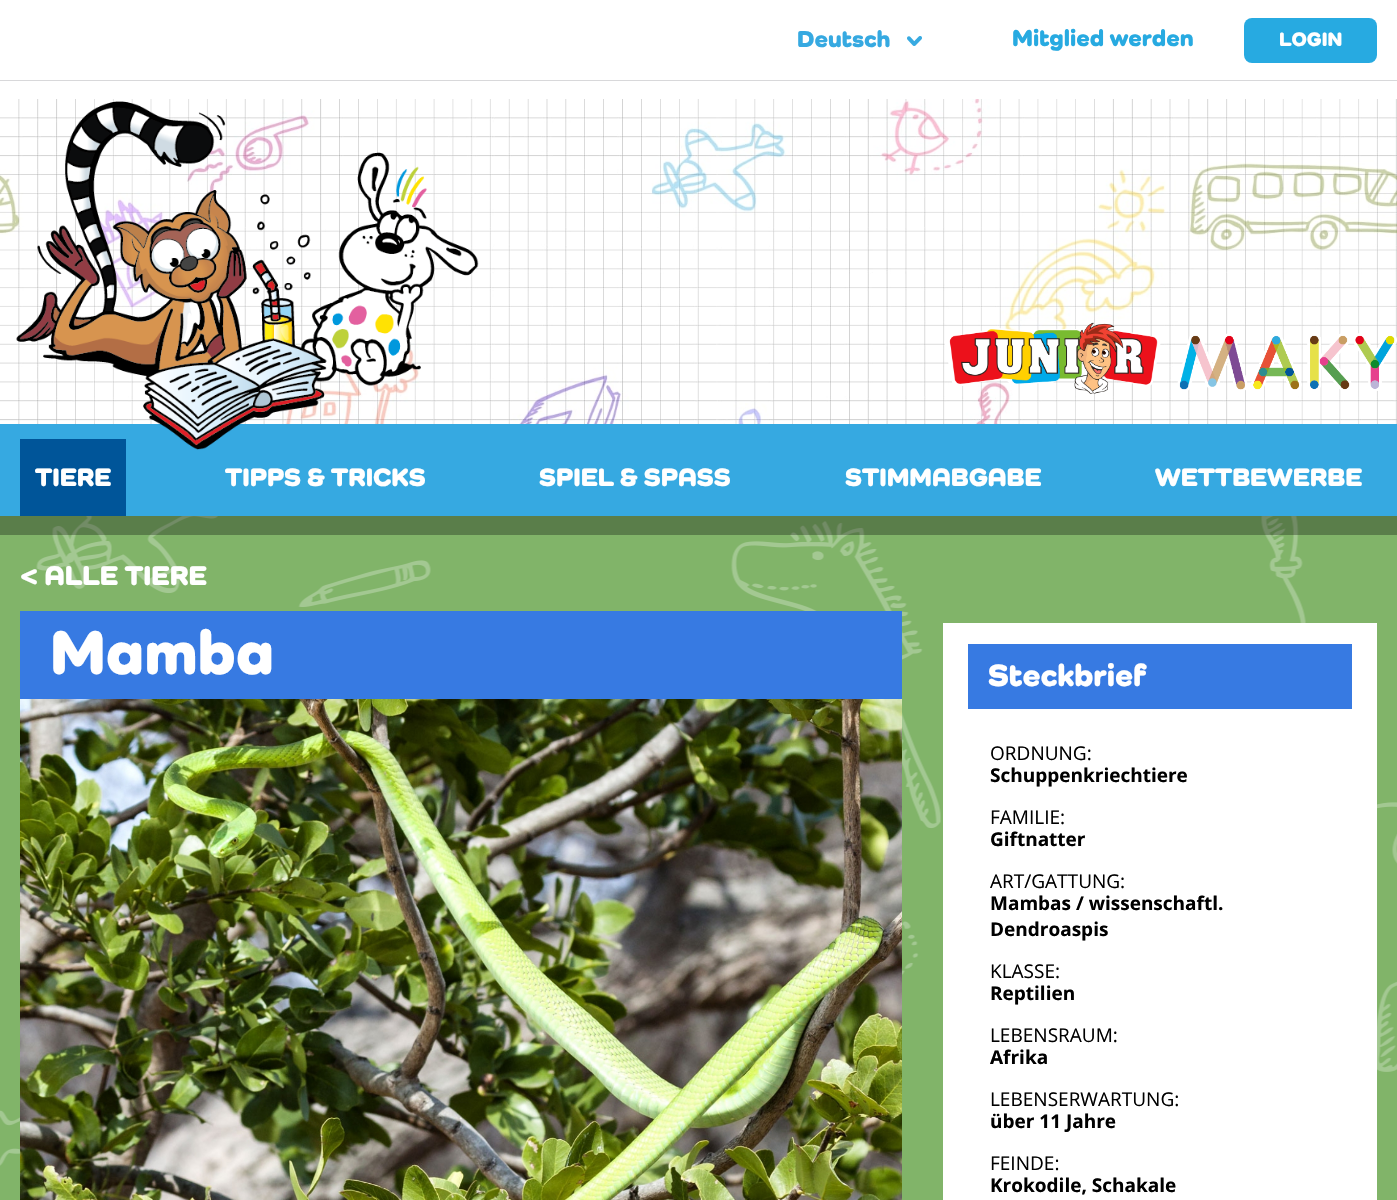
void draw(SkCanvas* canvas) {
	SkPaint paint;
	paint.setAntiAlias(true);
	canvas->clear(0xffffffff);
	paint.setColor(0xffd8d8da);
	canvas->drawRect(SkRect::MakeXYWH(0, 80, 1397, 1), paint);
	SkFont f1(fontMgr->matchFamilyStyle("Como", SkFontStyle(900, SkFontStyle::kNormal_Width, SkFontStyle::kUpright_Slant)), 24);
	f1.setSubpixel(true);
	paint.setColor(0xff36a9e1);
	canvas->drawString("Deutsch", 797, 47, f1, paint);
	canvas->drawImageRect(SkImages::DeferredFromEncodedData(SkData::MakeFromFileName("img1.png")), SkRect::MakeXYWH(907, 36, 15, 10), SkSamplingOptions());
	paint.setColor(0xff27aae1);
	canvas->drawString("Mitglied werden", 1012, 46, f1, paint);
	canvas->drawRoundRect(SkRect::MakeXYWH(1244, 18, 133, 45), 8, 8, paint);
	SkFont f2(fontMgr->matchFamilyStyle("Como", SkFontStyle(900, SkFontStyle::kNormal_Width, SkFontStyle::kUpright_Slant)), 20);
	f2.setSubpixel(true);
	paint.setColor(0xffffffff);
	canvas->drawString("LOGIN", 1279, 46, f2, paint);
	canvas->drawImageRect(SkImages::DeferredFromEncodedData(SkData::MakeFromFileName("img2.png")), SkRect::MakeXYWH(0, 99, 1397, 325), SkSamplingOptions());
	paint.setColor(0xff36a9e1);
	canvas->drawRect(SkRect::MakeXYWH(0, 424, 1397, 92), paint);
	canvas->drawImageRect(SkImages::DeferredFromEncodedData(SkData::MakeFromFileName("img3.png")), SkRect::MakeXYWH(16, 101, 463, 349), SkSamplingOptions());
	canvas->drawImageRect(SkImages::DeferredFromEncodedData(SkData::MakeFromFileName("img4.png")), SkRect::MakeXYWH(944, 322, 217, 72), SkSamplingOptions());
	canvas->drawImageRect(SkImages::DeferredFromEncodedData(SkData::MakeFromFileName("img5.png")), SkRect::MakeXYWH(1177, 333, 220, 58), SkSamplingOptions());
	paint.setColor(0xff005599);
	canvas->drawRect(SkRect::MakeXYWH(20, 439, 106, 77), paint);
	SkFont f3(fontMgr->matchFamilyStyle("Como", SkFontStyle(900, SkFontStyle::kNormal_Width, SkFontStyle::kUpright_Slant)), 26);
	f3.setSubpixel(true);
	paint.setColor(0xffffffff);
	canvas->drawString("TIERE", 35, 486, f3, paint);
	canvas->drawString("TIPPS & TRICKS", 225, 486, f3, paint);
	canvas->drawString("SPIEL & SPASS", 539, 486, f3, paint);
	canvas->drawString("STIMMABGABE", 845, 486, f3, paint);
	canvas->drawString("WETTBEWERBE", 1155, 486, f3, paint);
	paint.setColor(0xff81b469);
	canvas->drawRect(SkRect::MakeXYWH(0, 516, 1397, 684), paint);
	canvas->drawImageRect(SkImages::DeferredFromEncodedData(SkData::MakeFromFileName("img6.png")), SkRect::MakeXYWH(0, 516, 1397, 650), SkSamplingOptions());
	paint.setColor(0x4d000000);
	canvas->drawRect(SkRect::MakeXYWH(0, 516, 1397, 19), paint);
	SkFont f4(fontMgr->matchFamilyStyle("Como", SkFontStyle(900, SkFontStyle::kNormal_Width, SkFontStyle::kUpright_Slant)), 28);
	f4.setSubpixel(true);
	paint.setColor(0xffffffff);
	canvas->drawString("< ALLE TIERE", 20, 585, f4, paint);
	paint.setColor(0xff377ae2);
	canvas->drawRect(SkRect::MakeXYWH(20, 611, 882, 88), paint);
	SkFont f5(fontMgr->matchFamilyStyle("Como", SkFontStyle(900, SkFontStyle::kNormal_Width, SkFontStyle::kUpright_Slant)), 64);
	f5.setSubpixel(true);
	paint.setColor(0xffffffff);
	canvas->drawString("Mamba", 50, 674, f5, paint);
	canvas->drawImageRect(SkImages::DeferredFromEncodedData(SkData::MakeFromFileName("img7.png")), SkRect::MakeXYWH(20, 699, 882, 501), SkSamplingOptions());
	canvas->drawRect(SkRect::MakeXYWH(943, 623, 434, 577), paint);
	paint.setColor(0xff377ae2);
	canvas->drawRect(SkRect::MakeXYWH(968, 644, 384, 65), paint);
	SkFont f6(fontMgr->matchFamilyStyle("Como", SkFontStyle(900, SkFontStyle::kNormal_Width, SkFontStyle::kUpright_Slant)), 32);
	f6.setSubpixel(true);
	paint.setColor(0xffffffff);
	canvas->drawString("Steckbrief", 988, 686, f6, paint);
	SkFont f7(fontMgr->matchFamilyStyle("Open Sans", SkFontStyle::Normal()), 19);
	f7.setSubpixel(true);
	paint.setColor(0xff000000);
	canvas->drawString("ORDNUNG:", 990, 760, f7, paint);
	SkFont f8(fontMgr->matchFamilyStyle("Open Sans", SkFontStyle::Bold()), 19);
	f8.setSubpixel(true);
	canvas->drawString("Schuppenkriechtiere", 990, 782, f8, paint);
	canvas->drawString("FAMILIE:", 990, 824, f7, paint);
	canvas->drawString("Giftnatter", 990, 846, f8, paint);
	canvas->drawString("ART/GATTUNG:", 990, 888, f7, paint);
	canvas->drawString("Mambas / wissenschaftl.", 990, 910, f8, paint);
	canvas->drawString("Dendroaspis", 990, 936, f8, paint);
	canvas->drawString("KLASSE:", 990, 978, f7, paint);
	canvas->drawString("Reptilien", 990, 1000, f8, paint);
	canvas->drawString("LEBENSRAUM:", 990, 1042, f7, paint);
	canvas->drawString("Afrika", 990, 1064, f8, paint);
	canvas->drawString("LEBENSERWARTUNG:", 990, 1106, f7, paint);
	canvas->drawString("über 11 Jahre", 990, 1128, f8, paint);
	canvas->drawString("FEINDE:", 990, 1170, f7, paint);
	canvas->drawString("Krokodile, Schakale", 990, 1192, f8, paint);
}
